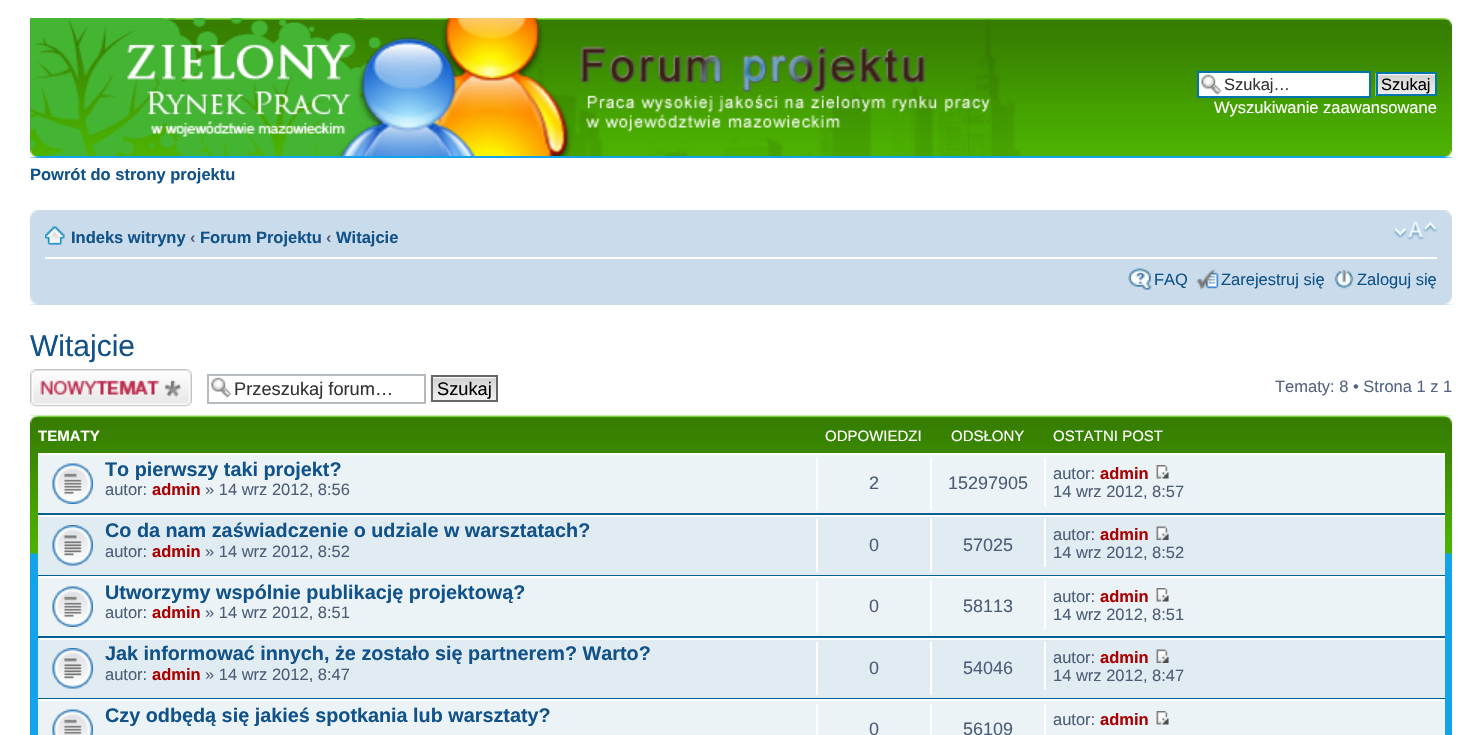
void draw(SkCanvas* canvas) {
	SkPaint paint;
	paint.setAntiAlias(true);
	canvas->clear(0xffffffff);
	paint.setColor(0xff12a3eb);
	canvas->drawRect(SkRect::MakeXYWH(30, 156, 1422, 2), paint);
	canvas->drawImageRect(SkImages::DeferredFromEncodedData(SkData::MakeFromFileName("img1.png")), SkRect::MakeXYWH(30, 18, 1422, 138), SkSamplingOptions());
	canvas->drawImageRect(SkImages::DeferredFromEncodedData(SkData::MakeFromFileName("img6.png")), SkRect::MakeXYWH(30, 150, 8, 8), SkSamplingOptions());
	canvas->drawImageRect(SkImages::DeferredFromEncodedData(SkData::MakeFromFileName("img2.png")), SkRect::MakeXYWH(30, 18, 991, 138), SkSamplingOptions());
	canvas->drawImageRect(SkImages::DeferredFromEncodedData(SkData::MakeFromFileName("img3.png")), SkRect::MakeXYWH(1443, 18, 9, 8), SkSamplingOptions());
	paint.setColor(0xffffffff);
	canvas->drawRect(SkRect::MakeXYWH(1199, 73, 170, 23), paint);
	canvas->drawImageRect(SkImages::DeferredFromEncodedData(SkData::MakeFromFileName("img4.png")), SkRect::MakeXYWH(1201, 74, 21, 21), SkSamplingOptions());
	paint.setStroke(true);
	paint.setStrokeWidth(2);
	paint.setColor(0xff0075b0);
	canvas->drawRect(SkRect::MakeXYWH(1198, 72, 172, 25), paint);
	canvas->save();
	canvas->clipRect(SkRect::MakeXYWH(1224, 75, 143, 18));
	SkFont f1(fontMgr->matchFamilyStyle("Liberation Sans", SkFontStyle::Normal()), 16.5);
	f1.setSubpixel(true);
	paint.setStroke(false);
	paint.setColor(0xff333333);
	canvas->drawString("Szukaj…", 1224, 90, f1, paint);
	canvas->restore();
	canvas->drawImageRect(SkImages::DeferredFromEncodedData(SkData::MakeFromFileName("img5.png")), SkRect::MakeXYWH(1375, 73, 60, 23), SkSamplingOptions());
	paint.setStroke(true);
	paint.setColor(0xff0075b0);
	canvas->drawRect(SkRect::MakeXYWH(1377, 73, 59, 22), paint);
	paint.setStroke(false);
	paint.setColor(0xff000000);
	canvas->drawString("Szukaj", 1381, 90, f1, paint);
	paint.setColor(0xffffffff);
	canvas->drawString("Wyszukiwanie zaawansowane", 1214, 113, f1, paint);
	canvas->drawImageRect(SkImages::DeferredFromEncodedData(SkData::MakeFromFileName("img7.png")), SkRect::MakeXYWH(1444, 150, 8, 8), SkSamplingOptions());
	SkFont f2(fontMgr->matchFamilyStyle("Liberation Sans", SkFontStyle::Bold()), 16.5);
	f2.setSubpixel(true);
	paint.setColor(0xff105289);
	canvas->drawString("Powrót do strony projektu", 30, 180, f2, paint);
	paint.setColor(0xffcadceb);
	canvas->drawRect(SkRect::MakeXYWH(30, 210, 1422, 95), paint);
	canvas->drawImageRect(SkImages::DeferredFromEncodedData(SkData::MakeFromFileName("img8.png")), SkRect::MakeXYWH(30, 210, 8, 8), SkSamplingOptions());
	canvas->drawImageRect(SkImages::DeferredFromEncodedData(SkData::MakeFromFileName("img9.png")), SkRect::MakeXYWH(1444, 210, 8, 8), SkSamplingOptions());
	paint.setColor(0xffffffff);
	canvas->drawRect(SkRect::MakeXYWH(45, 257, 1392, 2), paint);
	canvas->drawImageRect(SkImages::DeferredFromEncodedData(SkData::MakeFromFileName("img10.png")), SkRect::MakeXYWH(45, 226, 20, 19), SkSamplingOptions());
	paint.setColor(0xff105289);
	canvas->drawString("Indeks witryny", 71, 243, f2, paint);
	paint.setColor(0xff536482);
	canvas->drawString("‹", 190, 243, f2, paint);
	paint.setColor(0xff105289);
	canvas->drawString("Forum Projektu", 200, 243, f2, paint);
	paint.setColor(0xff536482);
	canvas->drawString("‹", 326, 243, f2, paint);
	paint.setColor(0xff105289);
	canvas->drawString("Witajcie", 336, 243, f2, paint);
	canvas->drawImageRect(SkImages::DeferredFromEncodedData(SkData::MakeFromFileName("img11.png")), SkRect::MakeXYWH(1393, 221, 44, 20), SkSamplingOptions());
	canvas->drawImageRect(SkImages::DeferredFromEncodedData(SkData::MakeFromFileName("img12.png")), SkRect::MakeXYWH(1128, 268, 24, 22), SkSamplingOptions());
	canvas->drawString("FAQ", 1154, 285, f1, paint);
	canvas->drawImageRect(SkImages::DeferredFromEncodedData(SkData::MakeFromFileName("img13.png")), SkRect::MakeXYWH(1196, 269, 23, 21), SkSamplingOptions());
	canvas->drawString("Zarejestruj się", 1221, 285, f1, paint);
	canvas->drawImageRect(SkImages::DeferredFromEncodedData(SkData::MakeFromFileName("img14.png")), SkRect::MakeXYWH(1334, 269, 20, 20), SkSamplingOptions());
	canvas->drawString("Zaloguj się", 1357, 285, f1, paint);
	canvas->drawImageRect(SkImages::DeferredFromEncodedData(SkData::MakeFromFileName("img15.png")), SkRect::MakeXYWH(30, 297, 8, 8), SkSamplingOptions());
	canvas->drawImageRect(SkImages::DeferredFromEncodedData(SkData::MakeFromFileName("img16.png")), SkRect::MakeXYWH(1444, 297, 8, 8), SkSamplingOptions());
	SkFont f3(fontMgr->matchFamilyStyle("Liberation Sans", SkFontStyle::Normal()), 30);
	f3.setSubpixel(true);
	canvas->drawString("Witajcie", 30, 356, f3, paint);
	canvas->drawImageRect(SkImages::DeferredFromEncodedData(SkData::MakeFromFileName("img17.png")), SkRect::MakeXYWH(30, 369, 162, 38), SkSamplingOptions());
	canvas->drawImageRect(SkImages::DeferredFromEncodedData(SkData::MakeFromFileName("img18.png")), SkRect::MakeXYWH(211, 377, 21, 21), SkSamplingOptions());
	paint.setStroke(true);
	paint.setColor(0xffb4bac0);
	canvas->drawRect(SkRect::MakeXYWH(208, 375, 217, 28), paint);
	SkFont f4(fontMgr->matchFamilyStyle("Liberation Sans", SkFontStyle::Normal()), 18.25);
	f4.setSubpixel(true);
	paint.setStroke(false);
	paint.setColor(0xff333333);
	canvas->drawString("Przeszukaj forum…", 234, 395, f4, paint);
	canvas->drawImageRect(SkImages::DeferredFromEncodedData(SkData::MakeFromFileName("img19.png")), SkRect::MakeXYWH(430, 377, 66, 25), SkSamplingOptions());
	paint.setStroke(true);
	paint.setColor(0xff666666);
	canvas->drawRect(SkRect::MakeXYWH(432, 376, 65, 25), paint);
	paint.setStroke(false);
	paint.setColor(0xff000000);
	canvas->drawString("Szukaj", 437, 395, f4, paint);
	paint.setColor(0xff536482);
	canvas->drawString("Tematy: 8 • Strona 1 z 1", 1275, 392, f1, paint);
	paint.setColor(0xff12a3eb);
	canvas->drawRect(SkRect::MakeXYWH(30, 553, 1422, 182), paint);
	canvas->drawImageRect(SkImages::DeferredFromEncodedData(SkData::MakeFromFileName("img20.png")), SkRect::MakeXYWH(30, 415, 1422, 139), SkSamplingOptions());
	canvas->drawImageRect(SkImages::DeferredFromEncodedData(SkData::MakeFromFileName("img21.png")), SkRect::MakeXYWH(30, 415, 8, 8), SkSamplingOptions());
	canvas->drawImageRect(SkImages::DeferredFromEncodedData(SkData::MakeFromFileName("img22.png")), SkRect::MakeXYWH(1444, 415, 8, 8), SkSamplingOptions());
	canvas->save();
	canvas->clipRect(SkRect::MakeXYWH(38, 423, 1407, 30));
	SkFont f5(fontMgr->matchFamilyStyle("Liberation Sans", SkFontStyle::Bold()), 15);
	f5.setSubpixel(true);
	paint.setColor(0xffffffff);
	canvas->drawString("TEMATY", 38, 441, f5, paint);
	canvas->restore();
	SkFont f6(fontMgr->matchFamilyStyle("Liberation Sans", SkFontStyle::Normal()), 15);
	f6.setSubpixel(true);
	canvas->drawString("ODPOWIEDZI", 825, 441, f6, paint);
	canvas->drawString("ODSŁONY", 951, 441, f6, paint);
	canvas->drawString("OSTATNI POST", 1053, 441, f6, paint);
	paint.setColor(0xffecf3f7);
	canvas->drawRect(SkRect::MakeXYWH(38, 455, 1407, 58), paint);
	paint.setColor(0xffffffff);
	canvas->drawRect(SkRect::MakeXYWH(38, 453, 1407, 2), paint);
	paint.setColor(0xff00608f);
	canvas->drawRect(SkRect::MakeXYWH(38, 513, 1407, 2), paint);
	canvas->drawImageRect(SkImages::DeferredFromEncodedData(SkData::MakeFromFileName("img23.png")), SkRect::MakeXYWH(52, 463, 41, 41), SkSamplingOptions());
	SkFont f7(fontMgr->matchFamilyStyle("Liberation Sans", SkFontStyle::Bold()), 19.8);
	f7.setSubpixel(true);
	paint.setColor(0xff105289);
	canvas->drawString("To pierwszy taki projekt?", 105, 476, f7, paint);
	paint.setColor(0xff4c5d77);
	canvas->drawString("autor:", 105, 495, f1, paint);
	paint.setColor(0xffaa0000);
	canvas->drawString("admin", 152, 495, f2, paint);
	paint.setColor(0xff4c5d77);
	canvas->drawString("» 14 wrz 2012, 8:56", 205, 495, f1, paint);
	paint.setColor(0xffffffff);
	canvas->drawRect(SkRect::MakeXYWH(816, 458, 2, 52), paint);
	SkFont f8(fontMgr->matchFamilyStyle("Liberation Sans", SkFontStyle::Normal()), 18);
	f8.setSubpixel(true);
	paint.setColor(0xff4c5d77);
	canvas->drawString("2", 869, 489, f8, paint);
	paint.setColor(0xffffffff);
	canvas->drawRect(SkRect::MakeXYWH(930, 458, 2, 52), paint);
	paint.setColor(0xff4c5d77);
	canvas->drawString("15297905", 948, 489, f8, paint);
	paint.setColor(0xffffffff);
	canvas->drawRect(SkRect::MakeXYWH(1044, 458, 2, 48), paint);
	paint.setColor(0xff4c5d77);
	canvas->drawString("autor:", 1053, 479, f1, paint);
	paint.setColor(0xffaa0000);
	canvas->drawString("admin", 1100, 479, f2, paint);
	canvas->drawImageRect(SkImages::DeferredFromEncodedData(SkData::MakeFromFileName("img24.png")), SkRect::MakeXYWH(1156, 465, 13, 14), SkSamplingOptions());
	paint.setColor(0xff4c5d77);
	canvas->drawString("14 wrz 2012, 8:57", 1053, 497, f1, paint);
	paint.setColor(0xffe1ebf2);
	canvas->drawRect(SkRect::MakeXYWH(38, 517, 1407, 58), paint);
	paint.setColor(0xffffffff);
	canvas->drawRect(SkRect::MakeXYWH(38, 515, 1407, 2), paint);
	paint.setColor(0xff00608f);
	canvas->drawRect(SkRect::MakeXYWH(38, 575, 1407, 1), paint);
	canvas->drawImageRect(SkImages::DeferredFromEncodedData(SkData::MakeFromFileName("img25.png")), SkRect::MakeXYWH(52, 525, 41, 41), SkSamplingOptions());
	paint.setColor(0xff105289);
	canvas->drawString("Co da nam zaświadczenie o udziale w warsztatach?", 105, 537, f7, paint);
	paint.setColor(0xff4c5d77);
	canvas->drawString("autor:", 105, 557, f1, paint);
	paint.setColor(0xffaa0000);
	canvas->drawString("admin", 152, 557, f2, paint);
	paint.setColor(0xff4c5d77);
	canvas->drawString("» 14 wrz 2012, 8:52", 205, 557, f1, paint);
	paint.setColor(0xffffffff);
	canvas->drawRect(SkRect::MakeXYWH(816, 519, 2, 53), paint);
	paint.setColor(0xff4c5d77);
	canvas->drawString("0", 869, 551, f8, paint);
	paint.setColor(0xffffffff);
	canvas->drawRect(SkRect::MakeXYWH(930, 519, 2, 53), paint);
	paint.setColor(0xff4c5d77);
	canvas->drawString("57025", 963, 551, f8, paint);
	paint.setColor(0xffffffff);
	canvas->drawRect(SkRect::MakeXYWH(1044, 519, 2, 48), paint);
	paint.setColor(0xff4c5d77);
	canvas->drawString("autor:", 1053, 540, f1, paint);
	paint.setColor(0xffaa0000);
	canvas->drawString("admin", 1100, 540, f2, paint);
	canvas->drawImageRect(SkImages::DeferredFromEncodedData(SkData::MakeFromFileName("img26.png")), SkRect::MakeXYWH(1156, 526, 13, 14), SkSamplingOptions());
	paint.setColor(0xff4c5d77);
	canvas->drawString("14 wrz 2012, 8:52", 1053, 558, f1, paint);
	paint.setColor(0xffecf3f7);
	canvas->drawRect(SkRect::MakeXYWH(38, 578, 1407, 58), paint);
	paint.setColor(0xffffffff);
	canvas->drawRect(SkRect::MakeXYWH(38, 576, 1407, 2), paint);
	paint.setColor(0xff00608f);
	canvas->drawRect(SkRect::MakeXYWH(38, 636, 1407, 2), paint);
	canvas->drawImageRect(SkImages::DeferredFromEncodedData(SkData::MakeFromFileName("img23.png")), SkRect::MakeXYWH(52, 586, 41, 41), SkSamplingOptions());
	paint.setColor(0xff105289);
	canvas->drawString("Utworzymy wspólnie publikację projektową?", 105, 599, f7, paint);
	paint.setColor(0xff4c5d77);
	canvas->drawString("autor:", 105, 618, f1, paint);
	paint.setColor(0xffaa0000);
	canvas->drawString("admin", 152, 618, f2, paint);
	paint.setColor(0xff4c5d77);
	canvas->drawString("» 14 wrz 2012, 8:51", 205, 618, f1, paint);
	paint.setColor(0xffffffff);
	canvas->drawRect(SkRect::MakeXYWH(816, 581, 2, 52), paint);
	paint.setColor(0xff4c5d77);
	canvas->drawString("0", 869, 612, f8, paint);
	paint.setColor(0xffffffff);
	canvas->drawRect(SkRect::MakeXYWH(930, 581, 2, 52), paint);
	paint.setColor(0xff4c5d77);
	canvas->drawString("58113", 963, 612, f8, paint);
	paint.setColor(0xffffffff);
	canvas->drawRect(SkRect::MakeXYWH(1044, 581, 2, 48), paint);
	paint.setColor(0xff4c5d77);
	canvas->drawString("autor:", 1053, 602, f1, paint);
	paint.setColor(0xffaa0000);
	canvas->drawString("admin", 1100, 602, f2, paint);
	canvas->drawImageRect(SkImages::DeferredFromEncodedData(SkData::MakeFromFileName("img24.png")), SkRect::MakeXYWH(1156, 588, 13, 14), SkSamplingOptions());
	paint.setColor(0xff4c5d77);
	canvas->drawString("14 wrz 2012, 8:51", 1053, 620, f1, paint);
	paint.setColor(0xffe1ebf2);
	canvas->drawRect(SkRect::MakeXYWH(38, 640, 1407, 58), paint);
	paint.setColor(0xffffffff);
	canvas->drawRect(SkRect::MakeXYWH(38, 638, 1407, 2), paint);
	paint.setColor(0xff00608f);
	canvas->drawRect(SkRect::MakeXYWH(38, 698, 1407, 1), paint);
	canvas->drawImageRect(SkImages::DeferredFromEncodedData(SkData::MakeFromFileName("img25.png")), SkRect::MakeXYWH(52, 648, 41, 41), SkSamplingOptions());
	paint.setColor(0xff105289);
	canvas->drawString("Jak informować innych, że zostało się partnerem? Warto?", 105, 660, f7, paint);
	paint.setColor(0xff4c5d77);
	canvas->drawString("autor:", 105, 680, f1, paint);
	paint.setColor(0xffaa0000);
	canvas->drawString("admin", 152, 680, f2, paint);
	paint.setColor(0xff4c5d77);
	canvas->drawString("» 14 wrz 2012, 8:47", 205, 680, f1, paint);
	paint.setColor(0xffffffff);
	canvas->drawRect(SkRect::MakeXYWH(816, 642, 2, 53), paint);
	paint.setColor(0xff4c5d77);
	canvas->drawString("0", 869, 674, f8, paint);
	paint.setColor(0xffffffff);
	canvas->drawRect(SkRect::MakeXYWH(930, 642, 2, 53), paint);
	paint.setColor(0xff4c5d77);
	canvas->drawString("54046", 963, 674, f8, paint);
	paint.setColor(0xffffffff);
	canvas->drawRect(SkRect::MakeXYWH(1044, 642, 2, 48), paint);
	paint.setColor(0xff4c5d77);
	canvas->drawString("autor:", 1053, 663, f1, paint);
	paint.setColor(0xffaa0000);
	canvas->drawString("admin", 1100, 663, f2, paint);
	canvas->drawImageRect(SkImages::DeferredFromEncodedData(SkData::MakeFromFileName("img26.png")), SkRect::MakeXYWH(1156, 649, 13, 14), SkSamplingOptions());
	paint.setColor(0xff4c5d77);
	canvas->drawString("14 wrz 2012, 8:47", 1053, 681, f1, paint);
	paint.setColor(0xffecf3f7);
	canvas->drawRect(SkRect::MakeXYWH(38, 701, 1407, 34), paint);
	paint.setColor(0xffffffff);
	canvas->drawRect(SkRect::MakeXYWH(38, 699, 1407, 2), paint);
	canvas->drawImageRect(SkImages::DeferredFromEncodedData(SkData::MakeFromFileName("img27.png")), SkRect::MakeXYWH(52, 709, 41, 26), SkSamplingOptions());
	paint.setColor(0xff105289);
	canvas->drawString("Czy odbędą się jakieś spotkania lub warsztaty?", 105, 722, f7, paint);
	paint.setColor(0xffffffff);
	canvas->drawRect(SkRect::MakeXYWH(1044, 704, 2, 31), paint);
	paint.setColor(0xff4c5d77);
	canvas->drawString("autor:", 1053, 725, f1, paint);
	paint.setColor(0xffaa0000);
	canvas->drawString("admin", 1100, 725, f2, paint);
	canvas->drawImageRect(SkImages::DeferredFromEncodedData(SkData::MakeFromFileName("img24.png")), SkRect::MakeXYWH(1156, 711, 13, 14), SkSamplingOptions());
	paint.setColor(0xffffffff);
	canvas->drawRect(SkRect::MakeXYWH(816, 704, 2, 31), paint);
	paint.setColor(0xff4c5d77);
	canvas->drawString("0", 869, 735, f8, paint);
	paint.setColor(0xffffffff);
	canvas->drawRect(SkRect::MakeXYWH(930, 704, 2, 31), paint);
	paint.setColor(0xff4c5d77);
	canvas->drawString("56109", 963, 735, f8, paint);
}
